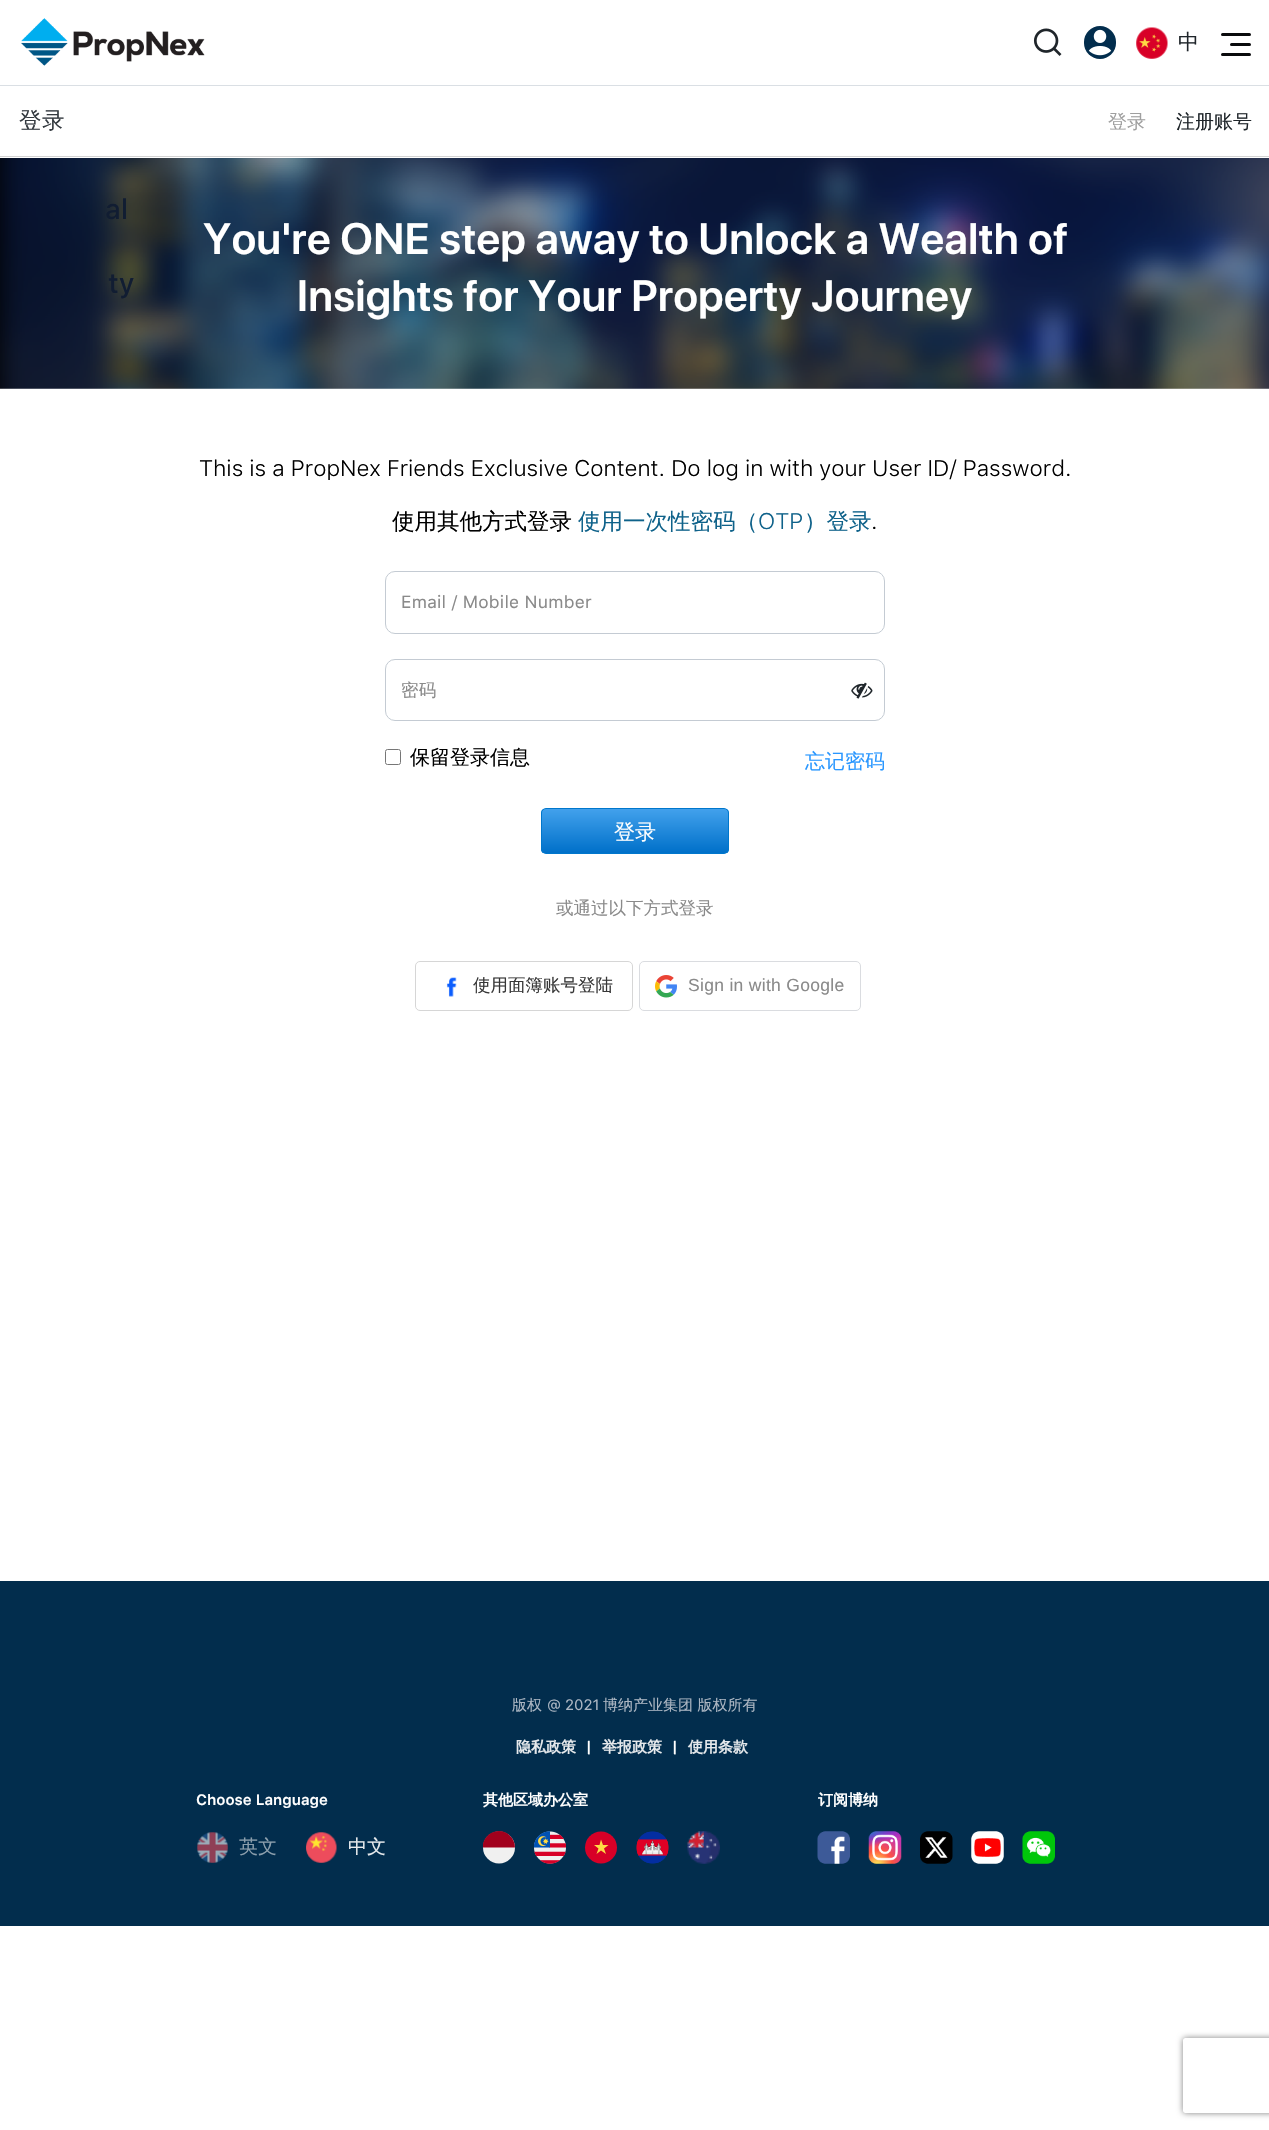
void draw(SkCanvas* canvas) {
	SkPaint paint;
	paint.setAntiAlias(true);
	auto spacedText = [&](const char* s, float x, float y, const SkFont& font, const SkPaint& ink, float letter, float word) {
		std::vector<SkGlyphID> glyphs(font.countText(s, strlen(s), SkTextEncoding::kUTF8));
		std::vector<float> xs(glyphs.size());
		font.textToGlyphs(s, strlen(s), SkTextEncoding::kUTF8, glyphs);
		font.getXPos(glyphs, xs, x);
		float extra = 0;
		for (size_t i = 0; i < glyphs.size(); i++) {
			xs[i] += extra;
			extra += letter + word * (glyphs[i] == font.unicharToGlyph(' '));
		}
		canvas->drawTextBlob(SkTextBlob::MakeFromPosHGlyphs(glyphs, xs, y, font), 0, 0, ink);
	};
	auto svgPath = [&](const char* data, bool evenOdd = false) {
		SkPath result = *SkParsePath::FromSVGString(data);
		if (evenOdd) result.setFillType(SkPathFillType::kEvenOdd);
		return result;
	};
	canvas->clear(0xffffffff);
	paint.setColor(0xffdadfe4);
	canvas->drawRect(SkRect::MakeXYWH(0, 85, 1269, 1), paint);
	canvas->drawImageRect(SkImages::DeferredFromEncodedData(SkData::MakeFromFileName("img1.png")), SkRect::MakeXYWH(21, 18, 184, 48), SkSamplingOptions());
	canvas->drawImageRect(SkImages::DeferredFromEncodedData(SkData::MakeFromFileName("img2.png")), SkRect::MakeXYWH(1033, 28, 29, 28), SkSamplingOptions());
	paint.setColor(0xff022d4d);
	canvas->drawRoundRect(SkRect::MakeXYWH(1084, 26, 32, 33), 16, 16, paint);
	canvas->drawImageRect(SkImages::DeferredFromEncodedData(SkData::MakeFromFileName("img3.png")), SkRect::MakeXYWH(1088, 29, 24, 27), SkSamplingOptions());
	canvas->drawImageRect(SkImages::DeferredFromEncodedData(SkData::MakeFromFileName("img4.png")), SkRect::MakeXYWH(1136, 27, 32, 32), SkSamplingOptions());
	SkFont f1(fontMgr->matchFamilyStyle("WenQuanYi Zen Hei", SkFontStyle(500, SkFontStyle::kNormal_Width, SkFontStyle::kUpright_Slant)), 21);
	f1.setSubpixel(true);
	paint.setColor(0xff1f252a);
	canvas->drawString("中", 1178, 49, f1, paint);
	paint.setColor(0xff090a0c);
	canvas->drawRoundRect(SkRect::MakeXYWH(1221, 33, 30, 3), 1.5, 1.5, paint);
	canvas->drawRoundRect(SkRect::MakeXYWH(1230, 43, 21, 3), 1.5, 1.5, paint);
	canvas->drawRoundRect(SkRect::MakeXYWH(1221, 53, 30, 3), 1.5, 1.5, paint);
	canvas->drawImageRect(SkImages::DeferredFromEncodedData(SkData::MakeFromFileName("img5.png")), SkRect::MakeXYWH(0, 158, 1269, 231), SkSamplingOptions());
	SkFont f2(fontMgr->matchFamilyStyle("SF Pro Text", SkFontStyle(500, SkFontStyle::kNormal_Width, SkFontStyle::kUpright_Slant)), 28);
	f2.setSubpixel(true);
	paint.setColor(0xff111d32);
	canvas->drawString("al", 105, 219, f2, paint);
	canvas->drawString("ty", 108, 293, f2, paint);
	paint.setColor(0xffd3d3d3);
	canvas->drawRect(SkRect::MakeXYWH(0, 156, 1269, 1), paint);
	SkFont f3(fontMgr->matchFamilyStyle("WenQuanYi Zen Hei", SkFontStyle(500, SkFontStyle::kNormal_Width, SkFontStyle::kUpright_Slant)), 22.5);
	f3.setSubpixel(true);
	paint.setColor(0xff343a40);
	spacedText("登录", 19, 128, f3, paint, 0.45, 0);
	SkFont f4(fontMgr->matchFamilyStyle("WenQuanYi Zen Hei", SkFontStyle(500, SkFontStyle::kNormal_Width, SkFontStyle::kUpright_Slant)), 19);
	f4.setSubpixel(true);
	paint.setColor(0xff9f9f9f);
	canvas->drawString("登录", 1108, 128, f4, paint);
	paint.setColor(0xff1f252a);
	canvas->drawString("注册账号", 1176, 128, f4, paint);
	SkFont f5(fontMgr->matchFamilyStyle("SF Pro Display", SkFontStyle(600, SkFontStyle::kNormal_Width, SkFontStyle::kUpright_Slant)), 43.75);
	f5.setSubpixel(true);
	paint.setColor(0xffffffff);
	spacedText("You're ONE step away to Unlock a Wealth of", 203, 254, f5, paint, 0.45, 0);
	spacedText("Insights for Your Property Journey", 297, 311, f5, paint, 0.45, 0);
	SkFont f6(fontMgr->matchFamilyStyle("SF Pro Text", SkFontStyle(300, SkFontStyle::kNormal_Width, SkFontStyle::kUpright_Slant)), 22.5);
	f6.setSubpixel(true);
	paint.setColor(0xff000000);
	canvas->drawString("This is a PropNex Friends Exclusive Content. Do log in with your User ID/ Password.", 199, 476, f6, paint);
	canvas->drawString("使用其他方式登录", 392, 529, f3, paint);
	paint.setColor(0xff0f628a);
	canvas->drawString("使用一次性密码（", 578, 529, f3, paint);
	canvas->drawString("OTP", 758, 529, f6, paint);
	canvas->drawString("）登录", 804, 529, f3, paint);
	paint.setColor(0xff000000);
	canvas->drawString(".", 871, 529, f6, paint);
	paint.setStroke(true);
	paint.setStrokeWidth(1);
	paint.setColor(0xffc4cbd3);
	canvas->drawRoundRect(SkRect::MakeXYWH(385.5, 571.5, 499, 62), 9.5, 9.5, paint);
	SkFont f7(fontMgr->matchFamilyStyle("SF Pro Text", SkFontStyle::Normal()), 17.5);
	f7.setSubpixel(true);
	paint.setStroke(false);
	paint.setColor(0xff8a8a8a);
	spacedText("Email / Mobile Number", 401, 608, f7, paint, 0.25, 0);
	paint.setStroke(true);
	paint.setColor(0xffc4cbd3);
	canvas->drawRoundRect(SkRect::MakeXYWH(385.5, 659.5, 499, 61), 9.5, 9.5, paint);
	SkFont f8(fontMgr->matchFamilyStyle("WenQuanYi Zen Hei", SkFontStyle(500, SkFontStyle::kNormal_Width, SkFontStyle::kUpright_Slant)), 17.5);
	f8.setSubpixel(true);
	paint.setStroke(false);
	paint.setColor(0xff8a8a8a);
	spacedText("密码", 401, 696, f8, paint, 0.25, 0);
	canvas->drawImageRect(SkImages::DeferredFromEncodedData(SkData::MakeFromFileName("img6.png")), SkRect::MakeXYWH(851, 682, 22, 17), SkSamplingOptions());
	paint.setStroke(true);
	paint.setColor(0xff767676);
	canvas->drawRoundRect(SkRect::MakeXYWH(385.5, 749.5, 15, 15), 2, 2, paint);
	SkFont f9(fontMgr->matchFamilyStyle("WenQuanYi Zen Hei", SkFontStyle(500, SkFontStyle::kNormal_Width, SkFontStyle::kUpright_Slant)), 20);
	f9.setSubpixel(true);
	paint.setStroke(false);
	paint.setColor(0xff000000);
	canvas->drawString("保留登录信息", 410, 764, f9, paint);
	paint.setColor(0xff2997ff);
	canvas->drawString("忘记密码", 805, 768, f9, paint);
	canvas->save();
	canvas->clipPath(svgPath("M546 808H724C727 808 729 810 729 813V849C729 852 727 854 724 854H546C543 854 541 852 541 849V813C541 810 543 808 546 808Z"), true);
	{
		const SkColor colors[] = {0xff42a1ec, 0xff0070c9};
		const float stops[] = {0, 1};
		const SkPoint ends[] = {{635, 809}, {635, 853}};
		paint.setShader(SkGradientShader::MakeLinear(ends, colors, stops, 2, SkTileMode::kClamp));
		paint.setAlpha(255);
	}
	canvas->drawRect(SkRect::MakeXYWH(541, 809, 188, 44), paint);
	canvas->restore();
	paint.setStroke(true);
	paint.setShader(nullptr);
	paint.setColor(0xff0077cc);
	canvas->drawRoundRect(SkRect::MakeXYWH(541.5, 808.5, 187, 45), 4.5, 4.5, paint);
	paint.setStroke(false);
	paint.setColor(0xffffffff);
	canvas->drawString("登录", 614, 839, f1, paint);
	paint.setColor(0xff8a8a8a);
	canvas->drawString("或通过以下方式登录", 556, 914, f8, paint);
	paint.setStroke(true);
	paint.setColor(0xffd6d6d6);
	canvas->drawRoundRect(SkRect::MakeXYWH(415.5, 961.5, 217, 49), 4.5, 4.5, paint);
	canvas->drawImageRect(SkImages::DeferredFromEncodedData(SkData::MakeFromFileName("img7.png")), SkRect::MakeXYWH(446, 977, 11, 20), SkSamplingOptions());
	paint.setStroke(false);
	paint.setColor(0xff373737);
	canvas->drawString("使用面簿账号登陆", 473, 991, f8, paint);
	paint.setStroke(true);
	paint.setColor(0xffdadce0);
	canvas->drawRoundRect(SkRect::MakeXYWH(639.5, 961.5, 221, 49), 4.5, 4.5, paint);
	canvas->drawImageRect(SkImages::DeferredFromEncodedData(SkData::MakeFromFileName("img8.png")), SkRect::MakeXYWH(655, 975, 22, 23), SkSamplingOptions());
	SkFont f10(fontMgr->matchFamilyStyle("Liberation Sans", SkFontStyle::Normal()), 17.5);
	f10.setSubpixel(true);
	paint.setStroke(false);
	paint.setColor(0xff8a8a8a);
	spacedText("Sign in with Google", 688, 991, f10, paint, 0.3, 0);
	paint.setColor(0xff022d4d);
	canvas->drawRect(SkRect::MakeXYWH(0, 1581, 1269, 345), paint);
	SkFont f11(fontMgr->matchFamilyStyle("WenQuanYi Zen Hei", SkFontStyle(500, SkFontStyle::kNormal_Width, SkFontStyle::kUpright_Slant)), 15);
	f11.setSubpixel(true);
	paint.setColor(0xffadb7c3);
	canvas->drawString("版权", 512, 1710, f11, paint);
	SkFont f12(fontMgr->matchFamilyStyle("SF Pro Text", SkFontStyle::Normal()), 15);
	f12.setSubpixel(true);
	canvas->drawString("@ 2021", 547, 1710, f12, paint);
	canvas->drawString("博纳产业集团 版权所有", 603, 1710, f11, paint);
	SkFont f13(fontMgr->matchFamilyStyle("WenQuanYi Zen Hei", SkFontStyle::Bold()), 15);
	f13.setSubpixel(true);
	paint.setColor(0xffe6e9ec);
	canvas->drawString("隐私政策", 516, 1752, f13, paint);
	SkFont f14(fontMgr->matchFamilyStyle("SF Pro Text", SkFontStyle(600, SkFontStyle::kNormal_Width, SkFontStyle::kUpright_Slant)), 15);
	f14.setSubpixel(true);
	paint.setColor(0xffffffff);
	canvas->drawString("|", 586, 1752, f14, paint);
	paint.setColor(0xffe6e9ec);
	canvas->drawString("举报政策", 602, 1752, f13, paint);
	paint.setColor(0xffffffff);
	canvas->drawString("|", 672, 1752, f14, paint);
	paint.setColor(0xffe6e9ec);
	canvas->drawString("使用条款", 688, 1752, f13, paint);
	paint.setColor(0xffffffff);
	canvas->drawString("Choose Language", 196, 1805, f14, paint);
	canvas->drawImageRect(SkImages::DeferredFromEncodedData(SkData::MakeFromFileName("img9.png")), SkRect::MakeXYWH(197, 1832, 31, 31), SkSamplingOptions());
	paint.setColor(0xff8b9eac);
	canvas->drawString("英文", 239, 1853, f4, paint);
	canvas->drawImageRect(SkImages::DeferredFromEncodedData(SkData::MakeFromFileName("img10.png")), SkRect::MakeXYWH(306, 1832, 31, 31), SkSamplingOptions());
	paint.setColor(0xffe6e9ec);
	canvas->drawString("中文", 348, 1853, f4, paint);
	paint.setColor(0xffffffff);
	canvas->drawString("其他区域办公室", 483, 1805, f13, paint);
	paint.setColor(0xfff0f0f0);
	canvas->drawCircle(499, 1847.5, 16, paint);
	canvas->save();
	canvas->clipRect(SkRect::MakeXYWH(483, 1831, 32, 33));
	paint.setColor(0xffa2001d);
	canvas->drawPath(svgPath("M482.5 1847.5C482.5 1838.5 490 1831 499 1831C507.5 1831 515 1838.5 515 1847.5"), paint);
	canvas->restore();
	canvas->drawImageRect(SkImages::DeferredFromEncodedData(SkData::MakeFromFileName("img11.png")), SkRect::MakeXYWH(534, 1831, 32, 33), SkSamplingOptions());
	paint.setColor(0xffd80027);
	canvas->drawCircle(601, 1847.5, 16, paint);
	paint.setColor(0xffffda44);
	canvas->drawPath(svgPath("M601 1839.5L603 1845H608.5L604 1848.5L606 1854L601 1850.5L596.5 1854L598.5 1848.5L594 1845H599.5Z"), paint);
	canvas->drawImageRect(SkImages::DeferredFromEncodedData(SkData::MakeFromFileName("img12.png")), SkRect::MakeXYWH(636, 1831, 33, 33), SkSamplingOptions());
	canvas->drawImageRect(SkImages::DeferredFromEncodedData(SkData::MakeFromFileName("img13.png")), SkRect::MakeXYWH(687, 1831, 33, 33), SkSamplingOptions());
	paint.setColor(0xffffffff);
	canvas->drawString("订阅博纳", 818, 1805, f13, paint);
	canvas->drawImageRect(SkImages::DeferredFromEncodedData(SkData::MakeFromFileName("img14.png")), SkRect::MakeXYWH(817, 1831, 33, 33), SkSamplingOptions());
	canvas->drawImageRect(SkImages::DeferredFromEncodedData(SkData::MakeFromFileName("img15.png")), SkRect::MakeXYWH(868, 1831, 34, 33), SkSamplingOptions());
	canvas->drawImageRect(SkImages::DeferredFromEncodedData(SkData::MakeFromFileName("img16.png")), SkRect::MakeXYWH(920, 1831, 33, 33), SkSamplingOptions());
	canvas->drawImageRect(SkImages::DeferredFromEncodedData(SkData::MakeFromFileName("img17.png")), SkRect::MakeXYWH(971, 1831, 33, 33), SkSamplingOptions());
	canvas->drawImageRect(SkImages::DeferredFromEncodedData(SkData::MakeFromFileName("img18.png")), SkRect::MakeXYWH(1022, 1831, 33, 33), SkSamplingOptions());
	canvas->save();
	canvas->clipPath(svgPath("M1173 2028H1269V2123H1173ZM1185.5 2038H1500.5C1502 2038 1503 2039 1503 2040.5V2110.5C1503 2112 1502 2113 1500.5 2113H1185.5C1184 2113 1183 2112 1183 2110.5V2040.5C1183 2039 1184 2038 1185.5 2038Z", true), true);
	paint.setColor(0xff808080);
	paint.setMaskFilter(SkMaskFilter::MakeBlur(kNormal_SkBlurStyle, 3));
	canvas->drawRoundRect(SkRect::MakeXYWH(1183, 2038, 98, 75), 2.5, 2.5, paint);
	paint.setMaskFilter(nullptr);
	canvas->restore();
}
